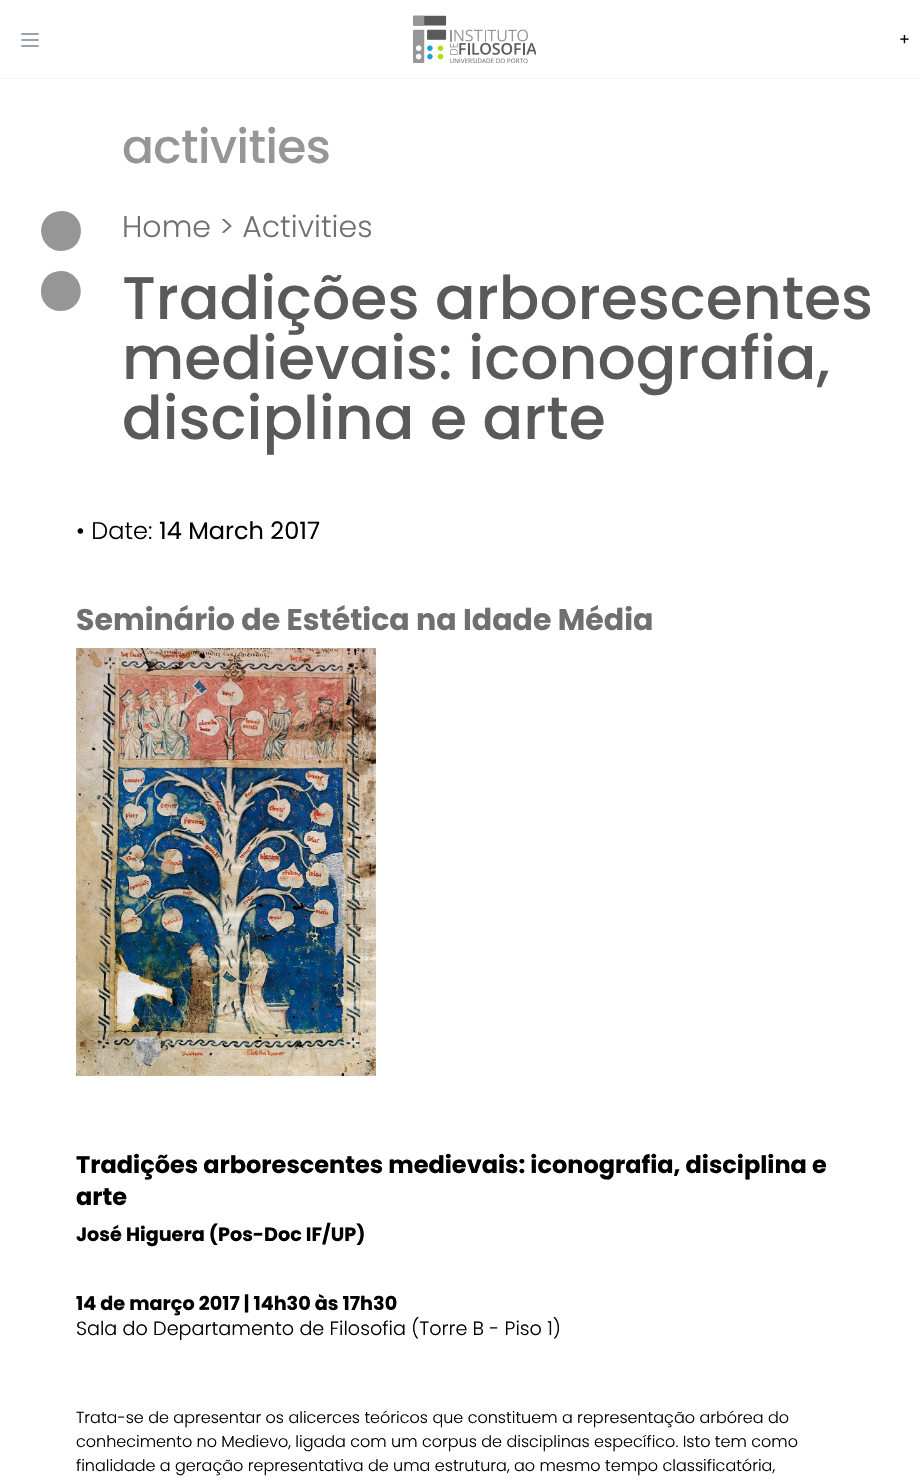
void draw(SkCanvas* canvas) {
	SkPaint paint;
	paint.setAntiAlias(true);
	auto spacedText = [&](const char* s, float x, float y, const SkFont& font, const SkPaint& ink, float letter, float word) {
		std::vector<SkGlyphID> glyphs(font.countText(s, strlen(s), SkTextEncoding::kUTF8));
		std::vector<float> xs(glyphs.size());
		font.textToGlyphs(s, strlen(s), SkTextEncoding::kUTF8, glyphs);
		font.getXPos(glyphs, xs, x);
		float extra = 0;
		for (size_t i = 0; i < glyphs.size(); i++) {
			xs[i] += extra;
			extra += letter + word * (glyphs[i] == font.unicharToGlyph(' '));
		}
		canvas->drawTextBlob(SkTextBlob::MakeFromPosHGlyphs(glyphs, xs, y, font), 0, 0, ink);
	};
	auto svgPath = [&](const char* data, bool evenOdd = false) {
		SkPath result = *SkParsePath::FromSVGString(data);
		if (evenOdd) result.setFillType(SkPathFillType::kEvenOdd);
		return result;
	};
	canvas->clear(0xffffffff);
	paint.setColor(0xfff3f4f6);
	canvas->drawRect(SkRect::MakeXYWH(0, 78, 920, 1), paint);
	paint.setStroke(true);
	paint.setStrokeWidth(2);
	paint.setStrokeCap(SkPaint::kRound_Cap);
	paint.setStrokeJoin(SkPaint::kRound_Join);
	paint.setColor(0xff9ca3af);
	canvas->drawPath(svgPath("M22 34H38M22 40H38M22 46H38"), paint);
	canvas->drawImageRect(SkImages::DeferredFromEncodedData(SkData::MakeFromFileName("img1.png")), SkRect::MakeXYWH(413, 15, 123, 48), SkSamplingOptions());
	SkFont f1(fontMgr->matchFamilyStyle("Poppins", SkFontStyle::Normal()), 16);
	f1.setSubpixel(true);
	paint.setStroke(false);
	paint.setColor(0xff000000);
	canvas->drawString("+", 899, 45, f1, paint);
	paint.setColor(0xff969696);
	canvas->drawPath(svgPath("M61 251C87 251 88 212 62 211C58 211 53 212 49 215C34 226 42 251 61 251Z"), paint);
	canvas->drawPath(svgPath("M61 271C35 271 34 310 60 311C64 311 69 310 73 307C88 296 80 271 61 271Z"), paint);
	SkFont f2(fontMgr->matchFamilyStyle("Poppins", SkFontStyle(500, SkFontStyle::kNormal_Width, SkFontStyle::kUpright_Slant)), 47);
	f2.setSubpixel(true);
	spacedText("activities", 122, 163, f2, paint, -0.5, 0);
	SkFont f3(fontMgr->matchFamilyStyle("Poppins", SkFontStyle(300, SkFontStyle::kNormal_Width, SkFontStyle::kUpright_Slant)), 30);
	f3.setSubpixel(true);
	paint.setColor(0xff707070);
	canvas->drawString("Home > Activities", 122, 237, f3, paint);
	SkFont f4(fontMgr->matchFamilyStyle("Poppins", SkFontStyle(500, SkFontStyle::kNormal_Width, SkFontStyle::kUpright_Slant)), 60);
	f4.setSubpixel(true);
	paint.setColor(0xff5a5a5a);
	canvas->drawString("Tradições arborescentes", 122, 319, f4, paint);
	canvas->drawString("medievais: iconografia,", 122, 379, f4, paint);
	canvas->drawString("disciplina e arte", 122, 439, f4, paint);
	SkFont f5(fontMgr->matchFamilyStyle("Poppins", SkFontStyle(300, SkFontStyle::kNormal_Width, SkFontStyle::kUpright_Slant)), 24);
	f5.setSubpixel(true);
	paint.setColor(0xff000000);
	canvas->drawString("• Date:", 76, 539, f5, paint);
	SkFont f6(fontMgr->matchFamilyStyle("Poppins", SkFontStyle::Normal()), 24);
	f6.setSubpixel(true);
	canvas->drawString("14 March 2017", 159, 539, f6, paint);
	SkFont f7(fontMgr->matchFamilyStyle("Poppins", SkFontStyle::Bold()), 30);
	f7.setSubpixel(true);
	paint.setColor(0xff707070);
	canvas->drawString("Seminário de Estética na Idade Média", 76, 630, f7, paint);
	canvas->drawImageRect(SkImages::DeferredFromEncodedData(SkData::MakeFromFileName("img2.png")), SkRect::MakeXYWH(76, 648, 300, 428), SkSamplingOptions());
	SkFont f8(fontMgr->matchFamilyStyle("Poppins", SkFontStyle::Bold()), 24);
	f8.setSubpixel(true);
	paint.setColor(0xff000000);
	canvas->drawString("Tradições arborescentes medievais: iconografia, disciplina e", 76, 1173, f8, paint);
	canvas->drawString("arte", 76, 1205, f8, paint);
	SkFont f9(fontMgr->matchFamilyStyle("Poppins", SkFontStyle::Bold()), 19.2);
	f9.setSubpixel(true);
	canvas->drawString("José Higuera (Pos-Doc IF/UP)", 76, 1241, f9, paint);
	canvas->drawString("14 de março 2017 | 14h30 às 17h30", 76, 1310, f9, paint);
	SkFont f10(fontMgr->matchFamilyStyle("Poppins", SkFontStyle(300, SkFontStyle::kNormal_Width, SkFontStyle::kUpright_Slant)), 19.2);
	f10.setSubpixel(true);
	canvas->drawString("Sala do Departamento de Filosofia (Torre B - Piso 1)", 76, 1335, f10, paint);
	SkFont f11(fontMgr->matchFamilyStyle("Poppins", SkFontStyle(300, SkFontStyle::kNormal_Width, SkFontStyle::kUpright_Slant)), 16);
	f11.setSubpixel(true);
	canvas->drawString("Trata-se de apresentar os alicerces teóricos que constituem a representação arbórea do", 76, 1423, f11, paint);
	canvas->drawString("conhecimento no Medievo, ligada com um corpus de disciplinas específico. Isto tem como", 76, 1447, f11, paint);
	canvas->drawString("finalidade a geração representativa de uma estrutura, ao mesmo tempo classificatória,", 76, 1471, f11, paint);
}
